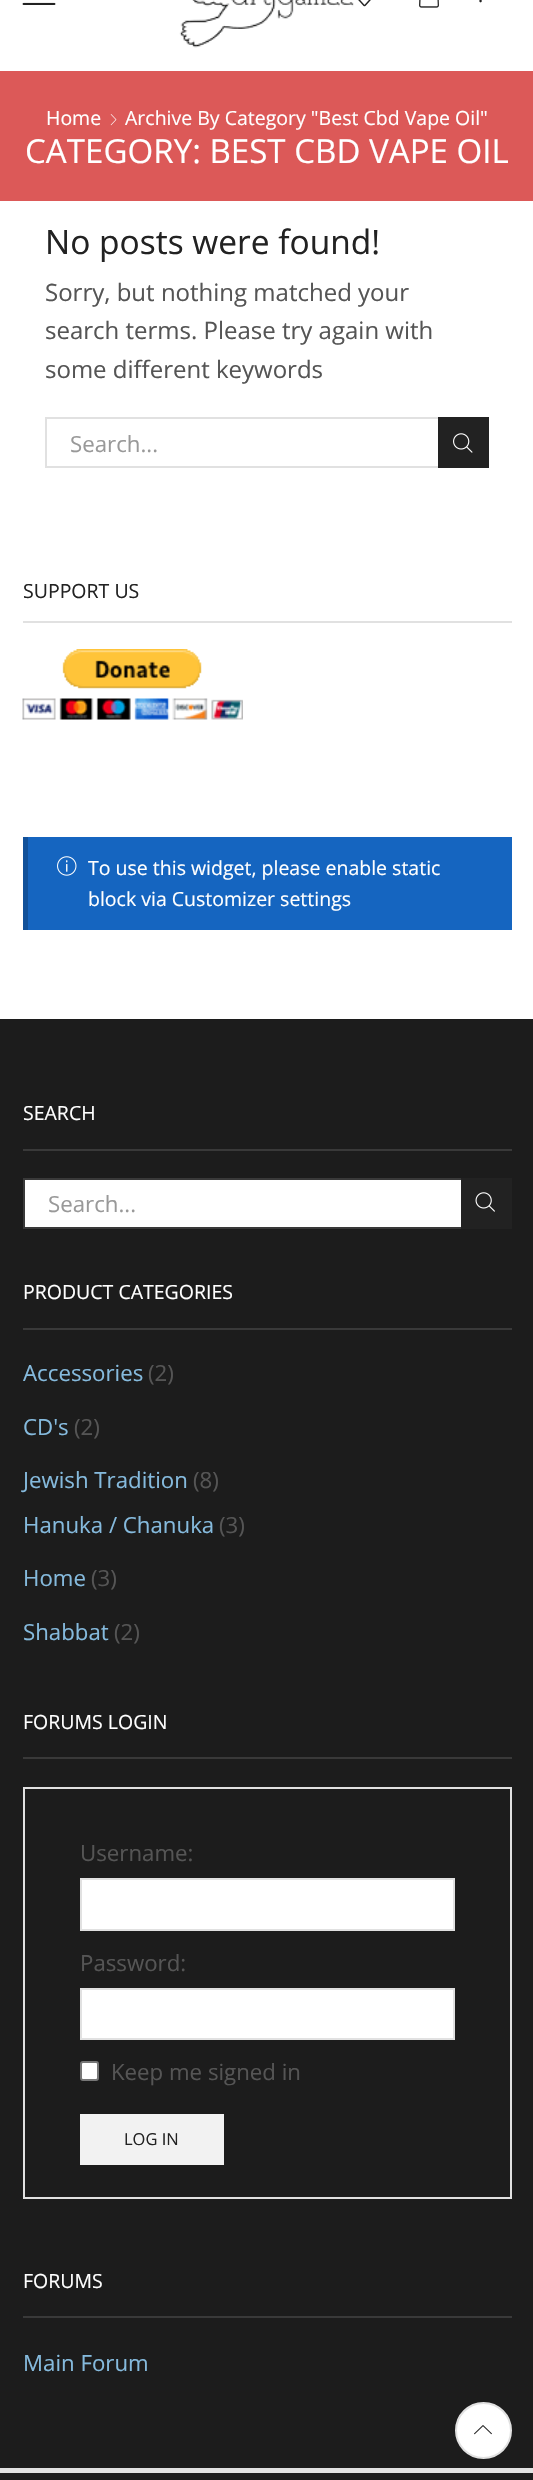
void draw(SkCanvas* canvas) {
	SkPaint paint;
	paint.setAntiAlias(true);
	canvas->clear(0xffffffff);
	canvas->drawImageRect(SkImages::DeferredFromEncodedData(SkData::MakeFromFileName("img1.png")), SkRect::MakeXYWH(179, 0, 175, 48), SkSamplingOptions());
	canvas->drawImageRect(SkImages::DeferredFromEncodedData(SkData::MakeFromFileName("img2.png")), SkRect::MakeXYWH(358, 0, 13, 7), SkSamplingOptions());
	canvas->drawImageRect(SkImages::DeferredFromEncodedData(SkData::MakeFromFileName("img3.png")), SkRect::MakeXYWH(419, 0, 20, 8), SkSamplingOptions());
	SkFont f1(fontMgr->matchFamilyStyle("Open Sans", SkFontStyle::Normal()), 19.5);
	f1.setSubpixel(true);
	paint.setColor(0xff222222);
	canvas->drawString(".", 478, 2, f1, paint);
	canvas->drawImageRect(SkImages::DeferredFromEncodedData(SkData::MakeFromFileName("img4.png")), SkRect::MakeXYWH(22, 2, 34, 3), SkSamplingOptions());
	paint.setColor(0xffdc5958);
	canvas->drawRect(SkRect::MakeXYWH(0, 71, 533, 130), paint);
	paint.setColor(0xffffffff);
	canvas->drawString("Home", 46, 125, f1, paint);
	canvas->drawImageRect(SkImages::DeferredFromEncodedData(SkData::MakeFromFileName("img5.png")), SkRect::MakeXYWH(110, 114, 7, 12), SkSamplingOptions());
	canvas->drawString("Archive By Category \"Best Cbd Vape Oil\"", 125, 125, f1, paint);
	SkFont f2(fontMgr->matchFamilyStyle("Open Sans", SkFontStyle::Normal()), 33.1);
	f2.setSubpixel(true);
	canvas->drawString("CATEGORY: BEST CBD VAPE OIL", 25, 163, f2, paint);
	SkFont f3(fontMgr->matchFamilyStyle("Open Sans", SkFontStyle::Normal()), 33.5);
	f3.setSubpixel(true);
	paint.setColor(0xff222222);
	canvas->drawString("No posts were found!", 45, 254, f3, paint);
	SkFont f4(fontMgr->matchFamilyStyle("Open Sans", SkFontStyle::Normal()), 24);
	f4.setSubpixel(true);
	paint.setColor(0xff555555);
	canvas->drawString("Sorry, but nothing matched your", 45, 301, f4, paint);
	canvas->drawString("search terms. Please try again with", 45, 339, f4, paint);
	canvas->drawString("some different keywords", 45, 378, f4, paint);
	paint.setStroke(true);
	paint.setStrokeWidth(2);
	paint.setColor(0xffe1e1e1);
	canvas->drawRect(SkRect::MakeXYWH(46, 418, 442, 49), paint);
	SkFont f5(fontMgr->matchFamilyStyle("Open Sans", SkFontStyle::Normal()), 22.25);
	f5.setSubpixel(true);
	paint.setStroke(false);
	paint.setColor(0xff999999);
	canvas->drawString("Search...", 70, 452, f5, paint);
	paint.setColor(0xff222222);
	canvas->drawRect(SkRect::MakeXYWH(438, 417, 51, 51), paint);
	canvas->drawImageRect(SkImages::DeferredFromEncodedData(SkData::MakeFromFileName("img6.png")), SkRect::MakeXYWH(453, 433, 20, 20), SkSamplingOptions());
	paint.setColor(0xffe1e1e1);
	canvas->drawRect(SkRect::MakeXYWH(23, 621, 489, 2), paint);
	paint.setColor(0xff222222);
	canvas->drawString("SUPPORT US", 23, 598, f1, paint);
	canvas->drawImageRect(SkImages::DeferredFromEncodedData(SkData::MakeFromFileName("img7.png")), SkRect::MakeXYWH(22, 649, 221, 71), SkSamplingOptions());
	paint.setColor(0xff1565c0);
	canvas->drawRect(SkRect::MakeXYWH(28, 837, 484, 93), paint);
	paint.setColor(0xff11519a);
	canvas->drawRect(SkRect::MakeXYWH(23, 837, 5, 93), paint);
	canvas->drawImageRect(SkImages::DeferredFromEncodedData(SkData::MakeFromFileName("img8.png")), SkRect::MakeXYWH(57, 856, 20, 20), SkSamplingOptions());
	paint.setColor(0xffffffff);
	canvas->drawString("To use this widget, please enable static", 88, 875, f1, paint);
	canvas->drawString("block via Customizer settings", 88, 906, f1, paint);
	paint.setColor(0xff1c1c1c);
	canvas->drawRect(SkRect::MakeXYWH(0, 1019, 533, 1461), paint);
	paint.setColor(0xff393939);
	canvas->drawRect(SkRect::MakeXYWH(23, 1149, 489, 2), paint);
	paint.setColor(0xffffffff);
	canvas->drawString("SEARCH", 23, 1120, f1, paint);
	canvas->drawRect(SkRect::MakeXYWH(25, 1180, 436, 47), paint);
	paint.setStroke(true);
	paint.setColor(0xff393939);
	canvas->drawRect(SkRect::MakeXYWH(24, 1179, 487, 49), paint);
	paint.setStroke(false);
	paint.setColor(0xff999999);
	canvas->drawString("Search...", 48, 1212, f5, paint);
	paint.setColor(0xff222222);
	canvas->drawRect(SkRect::MakeXYWH(461, 1178, 51, 51), paint);
	canvas->drawImageRect(SkImages::DeferredFromEncodedData(SkData::MakeFromFileName("img9.png")), SkRect::MakeXYWH(475, 1192, 20, 20), SkSamplingOptions());
	paint.setColor(0xff393939);
	canvas->drawRect(SkRect::MakeXYWH(23, 1328, 489, 2), paint);
	paint.setColor(0xffffffff);
	canvas->drawString("PRODUCT CATEGORIES", 23, 1299, f1, paint);
	paint.setColor(0xff85badd);
	canvas->drawString("Accessories", 23, 1381, f5, paint);
	paint.setColor(0xff555555);
	canvas->drawString("(2)", 148, 1381, f5, paint);
	paint.setColor(0xff85badd);
	canvas->drawString("CD's", 23, 1435, f5, paint);
	paint.setColor(0xff555555);
	canvas->drawString("(2)", 74, 1435, f5, paint);
	paint.setColor(0xff85badd);
	canvas->drawString("Jewish Tradition", 23, 1488, f5, paint);
	paint.setColor(0xff555555);
	canvas->drawString("(8)", 193, 1488, f5, paint);
	paint.setColor(0xff85badd);
	canvas->drawString("Hanuka / Chanuka", 23, 1533, f5, paint);
	paint.setColor(0xff555555);
	canvas->drawString("(3)", 219, 1533, f5, paint);
	paint.setColor(0xff85badd);
	canvas->drawString("Home", 23, 1586, f5, paint);
	paint.setColor(0xff555555);
	canvas->drawString("(3)", 91, 1586, f5, paint);
	paint.setColor(0xff85badd);
	canvas->drawString("Shabbat", 23, 1640, f5, paint);
	paint.setColor(0xff555555);
	canvas->drawString("(2)", 114, 1640, f5, paint);
	paint.setColor(0xff393939);
	canvas->drawRect(SkRect::MakeXYWH(23, 1757, 489, 2), paint);
	paint.setColor(0xffffffff);
	canvas->drawString("FORUMS LOGIN", 23, 1729, f1, paint);
	paint.setStroke(true);
	paint.setColor(0xffe1e1e1);
	canvas->drawRect(SkRect::MakeXYWH(24, 1788, 487, 410), paint);
	paint.setStroke(false);
	paint.setColor(0xff555555);
	canvas->drawString("Username:", 80, 1861, f5, paint);
	paint.setColor(0xffffffff);
	canvas->drawRect(SkRect::MakeXYWH(81, 1879, 373, 51), paint);
	paint.setStroke(true);
	paint.setColor(0xffe1e1e1);
	canvas->drawRect(SkRect::MakeXYWH(81, 1879, 373, 51), paint);
	paint.setStroke(false);
	paint.setColor(0xff555555);
	canvas->drawString("Password:", 80, 1971, f5, paint);
	paint.setColor(0xffffffff);
	canvas->drawRect(SkRect::MakeXYWH(81, 1989, 373, 50), paint);
	paint.setStroke(true);
	paint.setColor(0xffe1e1e1);
	canvas->drawRect(SkRect::MakeXYWH(81, 1989, 373, 50), paint);
	paint.setStroke(false);
	paint.setColor(0xffffffff);
	canvas->drawRoundRect(SkRect::MakeXYWH(81, 2062, 17, 18), 2, 2, paint);
	paint.setStroke(true);
	paint.setColor(0xff767676);
	canvas->drawRoundRect(SkRect::MakeXYWH(81, 2062, 17, 18), 2, 2, paint);
	paint.setStroke(false);
	paint.setColor(0xff555555);
	canvas->drawString("Keep me signed in", 111, 2080, f5, paint);
	paint.setColor(0xfff2f2f2);
	canvas->drawRect(SkRect::MakeXYWH(80, 2114, 144, 51), paint);
	SkFont f6(fontMgr->matchFamilyStyle("Open Sans", SkFontStyle::Normal()), 16.5);
	f6.setSubpixel(true);
	paint.setColor(0xff222222);
	canvas->drawString("LOG IN", 124, 2145, f6, paint);
	paint.setColor(0xff393939);
	canvas->drawRect(SkRect::MakeXYWH(23, 2316, 489, 2), paint);
	paint.setColor(0xffffffff);
	canvas->drawString("FORUMS", 23, 2288, f1, paint);
	paint.setColor(0xff85badd);
	canvas->drawString("Main Forum", 23, 2371, f5, paint);
	paint.setColor(0xffe1e1e1);
	canvas->drawRect(SkRect::MakeXYWH(0, 2468, 533, 5), paint);
	paint.setColor(0xffffffff);
	canvas->drawCircle(483.5, 2430.5, 27.5, paint);
	paint.setStroke(true);
	paint.setColor(0xffe1e1e1);
	canvas->drawCircle(483.5, 2430.5, 27.5, paint);
	canvas->drawImageRect(SkImages::DeferredFromEncodedData(SkData::MakeFromFileName("img10.png")), SkRect::MakeXYWH(474, 2425, 18, 10), SkSamplingOptions());
}
